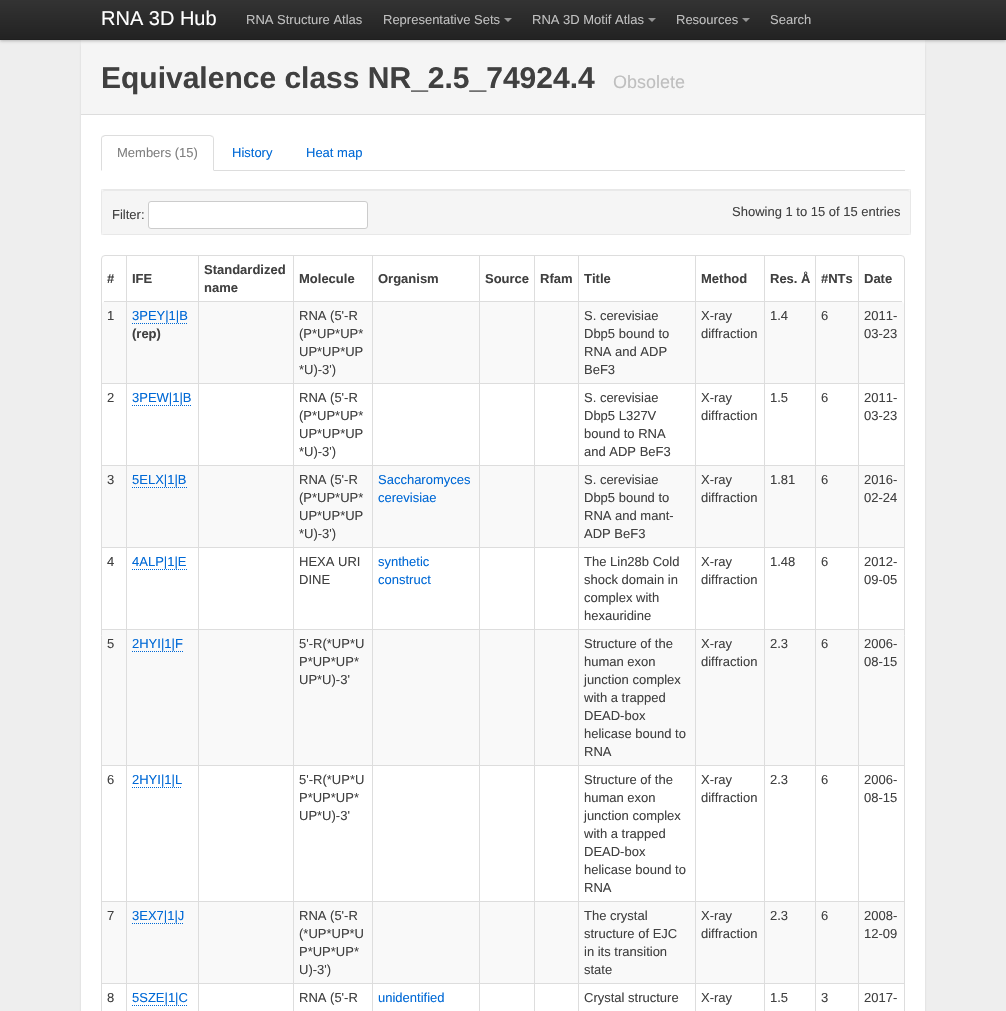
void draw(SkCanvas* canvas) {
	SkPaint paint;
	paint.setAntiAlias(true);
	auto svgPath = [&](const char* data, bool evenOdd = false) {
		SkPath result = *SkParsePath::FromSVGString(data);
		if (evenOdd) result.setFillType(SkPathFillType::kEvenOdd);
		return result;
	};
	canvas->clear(0xffeeeeee);
	paint.setColor(0x26000000);
	paint.setMaskFilter(SkMaskFilter::MakeBlur(kNormal_SkBlurStyle, 1));
	canvas->drawRoundRect(SkRect::MakeXYWH(81, 41, 844, 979), 6, 6, paint);
	paint.setMaskFilter(nullptr);
	paint.setColor(0xfff5f5f5);
	canvas->drawRect(SkRect::MakeXYWH(81, 40, 844, 74), paint);
	paint.setColor(0x40000000);
	paint.setMaskFilter(SkMaskFilter::MakeBlur(kNormal_SkBlurStyle, 1.5));
	canvas->drawRect(SkRect::MakeXYWH(0, 1, 1006, 40), paint);
	paint.setMaskFilter(nullptr);
	{
		const SkColor colors[] = {0xff333333, 0xff222222};
		const float stops[] = {0, 1};
		const SkPoint ends[] = {{503, 0}, {503, 40}};
		paint.setShader(SkGradientShader::MakeLinear(ends, colors, stops, 2, SkTileMode::kClamp));
		paint.setAlpha(255);
	}
	canvas->drawRect(SkRect::MakeXYWH(0, 0, 1006, 39), paint);
	paint.setShader(nullptr);
	paint.setColor(0xff1f1f1f);
	canvas->drawRect(SkRect::MakeXYWH(0, 39, 1006, 1), paint);
	SkFont f1(fontMgr->matchFamilyStyle("Liberation Sans", SkFontStyle::Normal()), 20);
	f1.setSubpixel(true);
	paint.setColor(0xffffffff);
	canvas->drawString("RNA 3D Hub", 101, 25, f1, paint);
	SkFont f2(fontMgr->matchFamilyStyle("Liberation Sans", SkFontStyle::Normal()), 13);
	f2.setSubpixel(true);
	paint.setColor(0xffbfbfbf);
	canvas->drawString("RNA Structure Atlas", 246, 24, f2, paint);
	canvas->drawString("Representative Sets", 383, 24, f2, paint);
	paint.setColor(0xff959595);
	canvas->drawPath(svgPath("M504 18H512L508 22Z"), paint);
	paint.setColor(0xffbfbfbf);
	canvas->drawString("RNA 3D Motif Atlas", 532, 24, f2, paint);
	paint.setColor(0xff959595);
	canvas->drawPath(svgPath("M648 18H656L652 22Z"), paint);
	paint.setColor(0xffbfbfbf);
	canvas->drawString("Resources", 676, 24, f2, paint);
	paint.setColor(0xff959595);
	canvas->drawPath(svgPath("M742 18H750L746 22Z"), paint);
	paint.setColor(0xffbfbfbf);
	canvas->drawString("Search", 770, 24, f2, paint);
	paint.setColor(0xffffffff);
	canvas->drawRect(SkRect::MakeXYWH(81, 115, 844, 896), paint);
	paint.setColor(0xffdddddd);
	canvas->drawRect(SkRect::MakeXYWH(81, 114, 844, 1), paint);
	SkFont f3(fontMgr->matchFamilyStyle("Liberation Sans", SkFontStyle::Bold()), 30);
	f3.setSubpixel(true);
	paint.setColor(0xff404040);
	canvas->drawString("Equivalence class NR_2.5_74924.4", 101, 88, f3, paint);
	SkFont f4(fontMgr->matchFamilyStyle("Liberation Sans", SkFontStyle::Normal()), 18);
	f4.setSubpixel(true);
	paint.setColor(0xffbfbfbf);
	canvas->drawString("Obsolete", 613, 88, f4, paint);
	paint.setColor(0xffdddddd);
	canvas->drawRect(SkRect::MakeXYWH(214, 170, 691, 1), paint);
	canvas->drawPath(svgPath("M105 135L102 136L103 137L105 136H210L212 137L213 136L210 135Z"), paint);
	canvas->drawPath(svgPath("M214 171V139C214 138 213.5 137 213 136L212 137C213 137 213 138 213 139V170Z"), paint);
	canvas->drawPath(svgPath("M101 171L102 170V139C102 138 102 137 103 137L102 136C101.5 137 101 138 101 139Z"), paint);
	paint.setColor(0xff808080);
	canvas->drawString("Members (15)", 117, 157, f2, paint);
	paint.setColor(0xff0069d6);
	canvas->drawString("History", 232, 157, f2, paint);
	canvas->drawString("Heat map", 306, 157, f2, paint);
	paint.setColor(0xfff5f5f5);
	canvas->drawRoundRect(SkRect::MakeXYWH(101, 189, 810, 46), 4, 4, paint);
	paint.setColor(0xffe9e9e9);
	canvas->drawPath(svgPath("M105 191H907C909 191 910 192 910 194C910 192 909 190 907 190H105C103 190 102 192 102 194C102 192 103 191 105 191Z"), paint);
	paint.setStroke(true);
	paint.setStrokeWidth(1);
	paint.setColor(0x0d000000);
	canvas->drawRect(SkRect::MakeXYWH(101.5, 189.5, 809, 45), paint);
	paint.setStroke(false);
	paint.setColor(0xff404040);
	canvas->drawString("Filter:", 112, 219, f2, paint);
	paint.setColor(0xffffffff);
	canvas->drawRoundRect(SkRect::MakeXYWH(148.5, 201.5, 219, 27), 2.5, 2.5, paint);
	paint.setStroke(true);
	paint.setColor(0xffcccccc);
	canvas->drawRoundRect(SkRect::MakeXYWH(148.5, 201.5, 219, 27), 2.5, 2.5, paint);
	paint.setStroke(false);
	paint.setColor(0xff404040);
	canvas->drawString("Showing 1 to 15 of 15 entries", 732, 216, f2, paint);
	paint.setStroke(true);
	paint.setColor(0xffdddddd);
	canvas->drawRoundRect(SkRect::MakeXYWH(101.5, 255.5, 803, 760), 3.5, 3.5, paint);
	SkFont f5(fontMgr->matchFamilyStyle("Liberation Sans", SkFontStyle::Bold()), 13);
	f5.setSubpixel(true);
	paint.setStroke(false);
	paint.setColor(0xff404040);
	canvas->drawString("#", 107, 283, f5, paint);
	paint.setColor(0xffdddddd);
	canvas->drawRect(SkRect::MakeXYWH(126, 256, 1, 45), paint);
	paint.setColor(0xff404040);
	canvas->drawString("IFE", 132, 283, f5, paint);
	paint.setColor(0xffdddddd);
	canvas->drawRect(SkRect::MakeXYWH(198, 256, 1, 45), paint);
	paint.setColor(0xff404040);
	canvas->drawString("Standardized", 204, 274, f5, paint);
	canvas->drawString("name", 204, 292, f5, paint);
	paint.setColor(0xffdddddd);
	canvas->drawRect(SkRect::MakeXYWH(293, 256, 1, 45), paint);
	paint.setColor(0xff404040);
	canvas->drawString("Molecule", 299, 283, f5, paint);
	paint.setColor(0xffdddddd);
	canvas->drawRect(SkRect::MakeXYWH(372, 256, 1, 45), paint);
	paint.setColor(0xff404040);
	canvas->drawString("Organism", 378, 283, f5, paint);
	paint.setColor(0xffdddddd);
	canvas->drawRect(SkRect::MakeXYWH(479, 256, 1, 45), paint);
	paint.setColor(0xff404040);
	canvas->drawString("Source", 485, 283, f5, paint);
	paint.setColor(0xffdddddd);
	canvas->drawRect(SkRect::MakeXYWH(534, 256, 1, 45), paint);
	paint.setColor(0xff404040);
	canvas->drawString("Rfam", 540, 283, f5, paint);
	paint.setColor(0xffdddddd);
	canvas->drawRect(SkRect::MakeXYWH(578, 256, 1, 45), paint);
	paint.setColor(0xff404040);
	canvas->drawString("Title", 584, 283, f5, paint);
	paint.setColor(0xffdddddd);
	canvas->drawRect(SkRect::MakeXYWH(695, 256, 1, 45), paint);
	paint.setColor(0xff404040);
	canvas->drawString("Method", 701, 283, f5, paint);
	paint.setColor(0xffdddddd);
	canvas->drawRect(SkRect::MakeXYWH(764, 256, 1, 45), paint);
	paint.setColor(0xff404040);
	canvas->drawString("Res. Å", 770, 283, f5, paint);
	paint.setColor(0xffdddddd);
	canvas->drawRect(SkRect::MakeXYWH(815, 256, 1, 45), paint);
	paint.setColor(0xff404040);
	canvas->drawString("#NTs", 821, 283, f5, paint);
	paint.setColor(0xffdddddd);
	canvas->drawRect(SkRect::MakeXYWH(858, 256, 1, 45), paint);
	paint.setColor(0xff404040);
	canvas->drawString("Date", 864, 283, f5, paint);
	paint.setColor(0xfff9f9f9);
	canvas->drawPath(svgPath("M106 301H126V383H102V305C102 303 104 301 106 301Z"), paint);
	paint.setColor(0xffdddddd);
	canvas->drawRect(SkRect::MakeXYWH(104, 301, 754, 1), paint);
	paint.setColor(0xff404040);
	canvas->drawString("1", 107, 320, f2, paint);
	paint.setColor(0xfff9f9f9);
	canvas->drawRect(SkRect::MakeXYWH(127, 302, 71, 81), paint);
	paint.setColor(0xffdddddd);
	canvas->drawRect(SkRect::MakeXYWH(126, 301, 1, 82), paint);
	paint.setColor(0xff0069d6);
	canvas->drawString("3PEY|1|B", 132, 320, f2, paint);
	paint.setStroke(true);
	paint.setPathEffect(SkDashPathEffect::Make({{1, 1}}, 0));
	canvas->drawPath(svgPath("M132 323.5H188"), paint);
	paint.setPathEffect(nullptr);
	paint.setStroke(false);
	paint.setColor(0xff404040);
	canvas->drawString("(rep)", 132, 338, f5, paint);
	paint.setColor(0xfff9f9f9);
	canvas->drawRect(SkRect::MakeXYWH(199, 302, 94, 81), paint);
	paint.setColor(0xffdddddd);
	canvas->drawRect(SkRect::MakeXYWH(198, 301, 1, 82), paint);
	paint.setColor(0xfff9f9f9);
	canvas->drawRect(SkRect::MakeXYWH(294, 302, 78, 81), paint);
	paint.setColor(0xffdddddd);
	canvas->drawRect(SkRect::MakeXYWH(293, 301, 1, 82), paint);
	paint.setColor(0xff404040);
	canvas->drawString("RNA (5'-R", 299, 320, f2, paint);
	canvas->drawString("(P*UP*UP*", 299, 338, f2, paint);
	canvas->drawString("UP*UP*UP", 299, 356, f2, paint);
	canvas->drawString("*U)-3')", 299, 374, f2, paint);
	paint.setColor(0xfff9f9f9);
	canvas->drawRect(SkRect::MakeXYWH(373, 302, 106, 81), paint);
	paint.setColor(0xffdddddd);
	canvas->drawRect(SkRect::MakeXYWH(372, 301, 1, 82), paint);
	paint.setColor(0xfff9f9f9);
	canvas->drawRect(SkRect::MakeXYWH(480, 302, 54, 81), paint);
	paint.setColor(0xffdddddd);
	canvas->drawRect(SkRect::MakeXYWH(479, 301, 1, 82), paint);
	paint.setColor(0xfff9f9f9);
	canvas->drawRect(SkRect::MakeXYWH(535, 302, 43, 81), paint);
	paint.setColor(0xffdddddd);
	canvas->drawRect(SkRect::MakeXYWH(534, 301, 1, 82), paint);
	paint.setColor(0xfff9f9f9);
	canvas->drawRect(SkRect::MakeXYWH(579, 302, 116, 81), paint);
	paint.setColor(0xffdddddd);
	canvas->drawRect(SkRect::MakeXYWH(578, 301, 1, 82), paint);
	paint.setColor(0xff404040);
	canvas->drawString("S. cerevisiae", 584, 320, f2, paint);
	canvas->drawString("Dbp5 bound to", 584, 338, f2, paint);
	canvas->drawString("RNA and ADP", 584, 356, f2, paint);
	canvas->drawString("BeF3", 584, 374, f2, paint);
	paint.setColor(0xfff9f9f9);
	canvas->drawRect(SkRect::MakeXYWH(696, 302, 68, 81), paint);
	paint.setColor(0xffdddddd);
	canvas->drawRect(SkRect::MakeXYWH(695, 301, 1, 82), paint);
	paint.setColor(0xff404040);
	canvas->drawString("X-ray", 701, 320, f2, paint);
	canvas->drawString("diffraction", 701, 338, f2, paint);
	paint.setColor(0xfff9f9f9);
	canvas->drawRect(SkRect::MakeXYWH(765, 302, 50, 81), paint);
	paint.setColor(0xffdddddd);
	canvas->drawRect(SkRect::MakeXYWH(764, 301, 1, 82), paint);
	paint.setColor(0xff404040);
	canvas->drawString("1.4", 770, 320, f2, paint);
	paint.setColor(0xfff9f9f9);
	canvas->drawRect(SkRect::MakeXYWH(816, 302, 42, 81), paint);
	paint.setColor(0xffdddddd);
	canvas->drawRect(SkRect::MakeXYWH(815, 301, 1, 82), paint);
	paint.setColor(0xff404040);
	canvas->drawString("6", 821, 320, f2, paint);
	paint.setColor(0xfff9f9f9);
	canvas->drawPath(svgPath("M858 301H900C902 301 904 303 904 305V383H858Z"), paint);
	paint.setColor(0xffdddddd);
	canvas->drawRect(SkRect::MakeXYWH(858, 301, 44, 1), paint);
	canvas->drawRect(SkRect::MakeXYWH(858, 301, 1, 82), paint);
	paint.setColor(0xff404040);
	canvas->drawString("2011-", 864, 320, f2, paint);
	canvas->drawString("03-23", 864, 338, f2, paint);
	paint.setColor(0xffdddddd);
	canvas->drawRect(SkRect::MakeXYWH(102, 383, 802, 1), paint);
	paint.setColor(0xff404040);
	canvas->drawString("2", 107, 402, f2, paint);
	paint.setColor(0xffdddddd);
	canvas->drawRect(SkRect::MakeXYWH(126, 383, 1, 82), paint);
	paint.setColor(0xff0069d6);
	canvas->drawString("3PEW|1|B", 132, 402, f2, paint);
	paint.setStroke(true);
	paint.setPathEffect(SkDashPathEffect::Make({{1, 1}}, 0));
	canvas->drawPath(svgPath("M132 405.5H192"), paint);
	paint.setPathEffect(nullptr);
	paint.setStroke(false);
	paint.setColor(0xffdddddd);
	canvas->drawRect(SkRect::MakeXYWH(198, 383, 1, 82), paint);
	canvas->drawRect(SkRect::MakeXYWH(293, 383, 1, 82), paint);
	paint.setColor(0xff404040);
	canvas->drawString("RNA (5'-R", 299, 402, f2, paint);
	canvas->drawString("(P*UP*UP*", 299, 420, f2, paint);
	canvas->drawString("UP*UP*UP", 299, 438, f2, paint);
	canvas->drawString("*U)-3')", 299, 456, f2, paint);
	paint.setColor(0xffdddddd);
	canvas->drawRect(SkRect::MakeXYWH(372, 383, 1, 82), paint);
	canvas->drawRect(SkRect::MakeXYWH(479, 383, 1, 82), paint);
	canvas->drawRect(SkRect::MakeXYWH(534, 383, 1, 82), paint);
	canvas->drawRect(SkRect::MakeXYWH(578, 383, 1, 82), paint);
	paint.setColor(0xff404040);
	canvas->drawString("S. cerevisiae", 584, 402, f2, paint);
	canvas->drawString("Dbp5 L327V", 584, 420, f2, paint);
	canvas->drawString("bound to RNA", 584, 438, f2, paint);
	canvas->drawString("and ADP BeF3", 584, 456, f2, paint);
	paint.setColor(0xffdddddd);
	canvas->drawRect(SkRect::MakeXYWH(695, 383, 1, 82), paint);
	paint.setColor(0xff404040);
	canvas->drawString("X-ray", 701, 402, f2, paint);
	canvas->drawString("diffraction", 701, 420, f2, paint);
	paint.setColor(0xffdddddd);
	canvas->drawRect(SkRect::MakeXYWH(764, 383, 1, 82), paint);
	paint.setColor(0xff404040);
	canvas->drawString("1.5", 770, 402, f2, paint);
	paint.setColor(0xffdddddd);
	canvas->drawRect(SkRect::MakeXYWH(815, 383, 1, 82), paint);
	paint.setColor(0xff404040);
	canvas->drawString("6", 821, 402, f2, paint);
	paint.setColor(0xffdddddd);
	canvas->drawRect(SkRect::MakeXYWH(858, 383, 1, 82), paint);
	paint.setColor(0xff404040);
	canvas->drawString("2011-", 864, 402, f2, paint);
	canvas->drawString("03-23", 864, 420, f2, paint);
	paint.setColor(0xfff9f9f9);
	canvas->drawRect(SkRect::MakeXYWH(102, 466, 24, 81), paint);
	paint.setColor(0xffdddddd);
	canvas->drawRect(SkRect::MakeXYWH(102, 465, 802, 1), paint);
	paint.setColor(0xff404040);
	canvas->drawString("3", 107, 484, f2, paint);
	paint.setColor(0xfff9f9f9);
	canvas->drawRect(SkRect::MakeXYWH(127, 466, 71, 81), paint);
	paint.setColor(0xffdddddd);
	canvas->drawRect(SkRect::MakeXYWH(126, 465, 1, 82), paint);
	paint.setColor(0xff0069d6);
	canvas->drawString("5ELX|1|B", 132, 484, f2, paint);
	paint.setStroke(true);
	paint.setPathEffect(SkDashPathEffect::Make({{1, 1}}, 0));
	canvas->drawPath(svgPath("M132 487.5H187"), paint);
	paint.setPathEffect(nullptr);
	paint.setStroke(false);
	paint.setColor(0xfff9f9f9);
	canvas->drawRect(SkRect::MakeXYWH(199, 466, 94, 81), paint);
	paint.setColor(0xffdddddd);
	canvas->drawRect(SkRect::MakeXYWH(198, 465, 1, 82), paint);
	paint.setColor(0xfff9f9f9);
	canvas->drawRect(SkRect::MakeXYWH(294, 466, 78, 81), paint);
	paint.setColor(0xffdddddd);
	canvas->drawRect(SkRect::MakeXYWH(293, 465, 1, 82), paint);
	paint.setColor(0xff404040);
	canvas->drawString("RNA (5'-R", 299, 484, f2, paint);
	canvas->drawString("(P*UP*UP*", 299, 502, f2, paint);
	canvas->drawString("UP*UP*UP", 299, 520, f2, paint);
	canvas->drawString("*U)-3')", 299, 538, f2, paint);
	paint.setColor(0xfff9f9f9);
	canvas->drawRect(SkRect::MakeXYWH(373, 466, 106, 81), paint);
	paint.setColor(0xffdddddd);
	canvas->drawRect(SkRect::MakeXYWH(372, 465, 1, 82), paint);
	paint.setColor(0xff0069d6);
	canvas->drawString("Saccharomyces", 378, 484, f2, paint);
	canvas->drawString("cerevisiae", 378, 502, f2, paint);
	paint.setColor(0xfff9f9f9);
	canvas->drawRect(SkRect::MakeXYWH(480, 466, 54, 81), paint);
	paint.setColor(0xffdddddd);
	canvas->drawRect(SkRect::MakeXYWH(479, 465, 1, 82), paint);
	paint.setColor(0xfff9f9f9);
	canvas->drawRect(SkRect::MakeXYWH(535, 466, 43, 81), paint);
	paint.setColor(0xffdddddd);
	canvas->drawRect(SkRect::MakeXYWH(534, 465, 1, 82), paint);
	paint.setColor(0xfff9f9f9);
	canvas->drawRect(SkRect::MakeXYWH(579, 466, 116, 81), paint);
	paint.setColor(0xffdddddd);
	canvas->drawRect(SkRect::MakeXYWH(578, 465, 1, 82), paint);
	paint.setColor(0xff404040);
	canvas->drawString("S. cerevisiae", 584, 484, f2, paint);
	canvas->drawString("Dbp5 bound to", 584, 502, f2, paint);
	canvas->drawString("RNA and mant-", 584, 520, f2, paint);
	canvas->drawString("ADP BeF3", 584, 538, f2, paint);
	paint.setColor(0xfff9f9f9);
	canvas->drawRect(SkRect::MakeXYWH(696, 466, 68, 81), paint);
	paint.setColor(0xffdddddd);
	canvas->drawRect(SkRect::MakeXYWH(695, 465, 1, 82), paint);
	paint.setColor(0xff404040);
	canvas->drawString("X-ray", 701, 484, f2, paint);
	canvas->drawString("diffraction", 701, 502, f2, paint);
	paint.setColor(0xfff9f9f9);
	canvas->drawRect(SkRect::MakeXYWH(765, 466, 50, 81), paint);
	paint.setColor(0xffdddddd);
	canvas->drawRect(SkRect::MakeXYWH(764, 465, 1, 82), paint);
	paint.setColor(0xff404040);
	canvas->drawString("1.81", 770, 484, f2, paint);
	paint.setColor(0xfff9f9f9);
	canvas->drawRect(SkRect::MakeXYWH(816, 466, 42, 81), paint);
	paint.setColor(0xffdddddd);
	canvas->drawRect(SkRect::MakeXYWH(815, 465, 1, 82), paint);
	paint.setColor(0xff404040);
	canvas->drawString("6", 821, 484, f2, paint);
	paint.setColor(0xfff9f9f9);
	canvas->drawRect(SkRect::MakeXYWH(859, 466, 45, 81), paint);
	paint.setColor(0xffdddddd);
	canvas->drawRect(SkRect::MakeXYWH(858, 465, 1, 82), paint);
	paint.setColor(0xff404040);
	canvas->drawString("2016-", 864, 484, f2, paint);
	canvas->drawString("02-24", 864, 502, f2, paint);
	paint.setColor(0xffdddddd);
	canvas->drawRect(SkRect::MakeXYWH(102, 547, 802, 1), paint);
	paint.setColor(0xff404040);
	canvas->drawString("4", 107, 566, f2, paint);
	paint.setColor(0xffdddddd);
	canvas->drawRect(SkRect::MakeXYWH(126, 547, 1, 82), paint);
	paint.setColor(0xff0069d6);
	canvas->drawString("4ALP|1|E", 132, 566, f2, paint);
	paint.setStroke(true);
	paint.setPathEffect(SkDashPathEffect::Make({{1, 1}}, 0));
	canvas->drawPath(svgPath("M132 569.5H187"), paint);
	paint.setPathEffect(nullptr);
	paint.setStroke(false);
	paint.setColor(0xffdddddd);
	canvas->drawRect(SkRect::MakeXYWH(198, 547, 1, 82), paint);
	canvas->drawRect(SkRect::MakeXYWH(293, 547, 1, 82), paint);
	paint.setColor(0xff404040);
	canvas->drawString("HEXA URI", 299, 566, f2, paint);
	canvas->drawString("DINE", 299, 584, f2, paint);
	paint.setColor(0xffdddddd);
	canvas->drawRect(SkRect::MakeXYWH(372, 547, 1, 82), paint);
	paint.setColor(0xff0069d6);
	canvas->drawString("synthetic", 378, 566, f2, paint);
	canvas->drawString("construct", 378, 584, f2, paint);
	paint.setColor(0xffdddddd);
	canvas->drawRect(SkRect::MakeXYWH(479, 547, 1, 82), paint);
	canvas->drawRect(SkRect::MakeXYWH(534, 547, 1, 82), paint);
	canvas->drawRect(SkRect::MakeXYWH(578, 547, 1, 82), paint);
	paint.setColor(0xff404040);
	canvas->drawString("The Lin28b Cold", 584, 566, f2, paint);
	canvas->drawString("shock domain in", 584, 584, f2, paint);
	canvas->drawString("complex with", 584, 602, f2, paint);
	canvas->drawString("hexauridine", 584, 620, f2, paint);
	paint.setColor(0xffdddddd);
	canvas->drawRect(SkRect::MakeXYWH(695, 547, 1, 82), paint);
	paint.setColor(0xff404040);
	canvas->drawString("X-ray", 701, 566, f2, paint);
	canvas->drawString("diffraction", 701, 584, f2, paint);
	paint.setColor(0xffdddddd);
	canvas->drawRect(SkRect::MakeXYWH(764, 547, 1, 82), paint);
	paint.setColor(0xff404040);
	canvas->drawString("1.48", 770, 566, f2, paint);
	paint.setColor(0xffdddddd);
	canvas->drawRect(SkRect::MakeXYWH(815, 547, 1, 82), paint);
	paint.setColor(0xff404040);
	canvas->drawString("6", 821, 566, f2, paint);
	paint.setColor(0xffdddddd);
	canvas->drawRect(SkRect::MakeXYWH(858, 547, 1, 82), paint);
	paint.setColor(0xff404040);
	canvas->drawString("2012-", 864, 566, f2, paint);
	canvas->drawString("09-05", 864, 584, f2, paint);
	paint.setColor(0xfff9f9f9);
	canvas->drawRect(SkRect::MakeXYWH(102, 630, 24, 135), paint);
	paint.setColor(0xffdddddd);
	canvas->drawRect(SkRect::MakeXYWH(102, 629, 802, 1), paint);
	paint.setColor(0xff404040);
	canvas->drawString("5", 107, 648, f2, paint);
	paint.setColor(0xfff9f9f9);
	canvas->drawRect(SkRect::MakeXYWH(127, 630, 71, 135), paint);
	paint.setColor(0xffdddddd);
	canvas->drawRect(SkRect::MakeXYWH(126, 629, 1, 136), paint);
	paint.setColor(0xff0069d6);
	canvas->drawString("2HYI|1|F", 132, 648, f2, paint);
	paint.setStroke(true);
	paint.setPathEffect(SkDashPathEffect::Make({{1, 1}}, 0));
	canvas->drawPath(svgPath("M132 651.5H183"), paint);
	paint.setPathEffect(nullptr);
	paint.setStroke(false);
	paint.setColor(0xfff9f9f9);
	canvas->drawRect(SkRect::MakeXYWH(199, 630, 94, 135), paint);
	paint.setColor(0xffdddddd);
	canvas->drawRect(SkRect::MakeXYWH(198, 629, 1, 136), paint);
	paint.setColor(0xfff9f9f9);
	canvas->drawRect(SkRect::MakeXYWH(294, 630, 78, 135), paint);
	paint.setColor(0xffdddddd);
	canvas->drawRect(SkRect::MakeXYWH(293, 629, 1, 136), paint);
	paint.setColor(0xff404040);
	canvas->drawString("5'-R(*UP*U", 299, 648, f2, paint);
	canvas->drawString("P*UP*UP*", 299, 666, f2, paint);
	canvas->drawString("UP*U)-3'", 299, 684, f2, paint);
	paint.setColor(0xfff9f9f9);
	canvas->drawRect(SkRect::MakeXYWH(373, 630, 106, 135), paint);
	paint.setColor(0xffdddddd);
	canvas->drawRect(SkRect::MakeXYWH(372, 629, 1, 136), paint);
	paint.setColor(0xfff9f9f9);
	canvas->drawRect(SkRect::MakeXYWH(480, 630, 54, 135), paint);
	paint.setColor(0xffdddddd);
	canvas->drawRect(SkRect::MakeXYWH(479, 629, 1, 136), paint);
	paint.setColor(0xfff9f9f9);
	canvas->drawRect(SkRect::MakeXYWH(535, 630, 43, 135), paint);
	paint.setColor(0xffdddddd);
	canvas->drawRect(SkRect::MakeXYWH(534, 629, 1, 136), paint);
	paint.setColor(0xfff9f9f9);
	canvas->drawRect(SkRect::MakeXYWH(579, 630, 116, 135), paint);
	paint.setColor(0xffdddddd);
	canvas->drawRect(SkRect::MakeXYWH(578, 629, 1, 136), paint);
	paint.setColor(0xff404040);
	canvas->drawString("Structure of the", 584, 648, f2, paint);
	canvas->drawString("human exon", 584, 666, f2, paint);
	canvas->drawString("junction complex", 584, 684, f2, paint);
	canvas->drawString("with a trapped", 584, 702, f2, paint);
	canvas->drawString("DEAD-box", 584, 720, f2, paint);
	canvas->drawString("helicase bound to", 584, 738, f2, paint);
	canvas->drawString("RNA", 584, 756, f2, paint);
	paint.setColor(0xfff9f9f9);
	canvas->drawRect(SkRect::MakeXYWH(696, 630, 68, 135), paint);
	paint.setColor(0xffdddddd);
	canvas->drawRect(SkRect::MakeXYWH(695, 629, 1, 136), paint);
	paint.setColor(0xff404040);
	canvas->drawString("X-ray", 701, 648, f2, paint);
	canvas->drawString("diffraction", 701, 666, f2, paint);
	paint.setColor(0xfff9f9f9);
	canvas->drawRect(SkRect::MakeXYWH(765, 630, 50, 135), paint);
	paint.setColor(0xffdddddd);
	canvas->drawRect(SkRect::MakeXYWH(764, 629, 1, 136), paint);
	paint.setColor(0xff404040);
	canvas->drawString("2.3", 770, 648, f2, paint);
	paint.setColor(0xfff9f9f9);
	canvas->drawRect(SkRect::MakeXYWH(816, 630, 42, 135), paint);
	paint.setColor(0xffdddddd);
	canvas->drawRect(SkRect::MakeXYWH(815, 629, 1, 136), paint);
	paint.setColor(0xff404040);
	canvas->drawString("6", 821, 648, f2, paint);
	paint.setColor(0xfff9f9f9);
	canvas->drawRect(SkRect::MakeXYWH(859, 630, 45, 135), paint);
	paint.setColor(0xffdddddd);
	canvas->drawRect(SkRect::MakeXYWH(858, 629, 1, 136), paint);
	paint.setColor(0xff404040);
	canvas->drawString("2006-", 864, 648, f2, paint);
	canvas->drawString("08-15", 864, 666, f2, paint);
	paint.setColor(0xffdddddd);
	canvas->drawRect(SkRect::MakeXYWH(102, 765, 802, 1), paint);
	paint.setColor(0xff404040);
	canvas->drawString("6", 107, 784, f2, paint);
	paint.setColor(0xffdddddd);
	canvas->drawRect(SkRect::MakeXYWH(126, 765, 1, 136), paint);
	paint.setColor(0xff0069d6);
	canvas->drawString("2HYI|1|L", 132, 784, f2, paint);
	paint.setStroke(true);
	paint.setPathEffect(SkDashPathEffect::Make({{1, 1}}, 0));
	canvas->drawPath(svgPath("M132 787.5H182"), paint);
	paint.setPathEffect(nullptr);
	paint.setStroke(false);
	paint.setColor(0xffdddddd);
	canvas->drawRect(SkRect::MakeXYWH(198, 765, 1, 136), paint);
	canvas->drawRect(SkRect::MakeXYWH(293, 765, 1, 136), paint);
	paint.setColor(0xff404040);
	canvas->drawString("5'-R(*UP*U", 299, 784, f2, paint);
	canvas->drawString("P*UP*UP*", 299, 802, f2, paint);
	canvas->drawString("UP*U)-3'", 299, 820, f2, paint);
	paint.setColor(0xffdddddd);
	canvas->drawRect(SkRect::MakeXYWH(372, 765, 1, 136), paint);
	canvas->drawRect(SkRect::MakeXYWH(479, 765, 1, 136), paint);
	canvas->drawRect(SkRect::MakeXYWH(534, 765, 1, 136), paint);
	canvas->drawRect(SkRect::MakeXYWH(578, 765, 1, 136), paint);
	paint.setColor(0xff404040);
	canvas->drawString("Structure of the", 584, 784, f2, paint);
	canvas->drawString("human exon", 584, 802, f2, paint);
	canvas->drawString("junction complex", 584, 820, f2, paint);
	canvas->drawString("with a trapped", 584, 838, f2, paint);
	canvas->drawString("DEAD-box", 584, 856, f2, paint);
	canvas->drawString("helicase bound to", 584, 874, f2, paint);
	canvas->drawString("RNA", 584, 892, f2, paint);
	paint.setColor(0xffdddddd);
	canvas->drawRect(SkRect::MakeXYWH(695, 765, 1, 136), paint);
	paint.setColor(0xff404040);
	canvas->drawString("X-ray", 701, 784, f2, paint);
	canvas->drawString("diffraction", 701, 802, f2, paint);
	paint.setColor(0xffdddddd);
	canvas->drawRect(SkRect::MakeXYWH(764, 765, 1, 136), paint);
	paint.setColor(0xff404040);
	canvas->drawString("2.3", 770, 784, f2, paint);
	paint.setColor(0xffdddddd);
	canvas->drawRect(SkRect::MakeXYWH(815, 765, 1, 136), paint);
	paint.setColor(0xff404040);
	canvas->drawString("6", 821, 784, f2, paint);
	paint.setColor(0xffdddddd);
	canvas->drawRect(SkRect::MakeXYWH(858, 765, 1, 136), paint);
	paint.setColor(0xff404040);
	canvas->drawString("2006-", 864, 784, f2, paint);
	canvas->drawString("08-15", 864, 802, f2, paint);
	paint.setColor(0xfff9f9f9);
	canvas->drawRect(SkRect::MakeXYWH(102, 902, 24, 81), paint);
	paint.setColor(0xffdddddd);
	canvas->drawRect(SkRect::MakeXYWH(102, 901, 802, 1), paint);
	paint.setColor(0xff404040);
	canvas->drawString("7", 107, 920, f2, paint);
	paint.setColor(0xfff9f9f9);
	canvas->drawRect(SkRect::MakeXYWH(127, 902, 71, 81), paint);
	paint.setColor(0xffdddddd);
	canvas->drawRect(SkRect::MakeXYWH(126, 901, 1, 82), paint);
	paint.setColor(0xff0069d6);
	canvas->drawString("3EX7|1|J", 132, 920, f2, paint);
	paint.setStroke(true);
	paint.setPathEffect(SkDashPathEffect::Make({{1, 1}}, 0));
	canvas->drawPath(svgPath("M132 923.5H184"), paint);
	paint.setPathEffect(nullptr);
	paint.setStroke(false);
	paint.setColor(0xfff9f9f9);
	canvas->drawRect(SkRect::MakeXYWH(199, 902, 94, 81), paint);
	paint.setColor(0xffdddddd);
	canvas->drawRect(SkRect::MakeXYWH(198, 901, 1, 82), paint);
	paint.setColor(0xfff9f9f9);
	canvas->drawRect(SkRect::MakeXYWH(294, 902, 78, 81), paint);
	paint.setColor(0xffdddddd);
	canvas->drawRect(SkRect::MakeXYWH(293, 901, 1, 82), paint);
	paint.setColor(0xff404040);
	canvas->drawString("RNA (5'-R", 299, 920, f2, paint);
	canvas->drawString("(*UP*UP*U", 299, 938, f2, paint);
	canvas->drawString("P*UP*UP*", 299, 956, f2, paint);
	canvas->drawString("U)-3')", 299, 974, f2, paint);
	paint.setColor(0xfff9f9f9);
	canvas->drawRect(SkRect::MakeXYWH(373, 902, 106, 81), paint);
	paint.setColor(0xffdddddd);
	canvas->drawRect(SkRect::MakeXYWH(372, 901, 1, 82), paint);
	paint.setColor(0xfff9f9f9);
	canvas->drawRect(SkRect::MakeXYWH(480, 902, 54, 81), paint);
	paint.setColor(0xffdddddd);
	canvas->drawRect(SkRect::MakeXYWH(479, 901, 1, 82), paint);
	paint.setColor(0xfff9f9f9);
	canvas->drawRect(SkRect::MakeXYWH(535, 902, 43, 81), paint);
	paint.setColor(0xffdddddd);
	canvas->drawRect(SkRect::MakeXYWH(534, 901, 1, 82), paint);
	paint.setColor(0xfff9f9f9);
	canvas->drawRect(SkRect::MakeXYWH(579, 902, 116, 81), paint);
	paint.setColor(0xffdddddd);
	canvas->drawRect(SkRect::MakeXYWH(578, 901, 1, 82), paint);
	paint.setColor(0xff404040);
	canvas->drawString("The crystal", 584, 920, f2, paint);
	canvas->drawString("structure of EJC", 584, 938, f2, paint);
	canvas->drawString("in its transition", 584, 956, f2, paint);
	canvas->drawString("state", 584, 974, f2, paint);
	paint.setColor(0xfff9f9f9);
	canvas->drawRect(SkRect::MakeXYWH(696, 902, 68, 81), paint);
	paint.setColor(0xffdddddd);
	canvas->drawRect(SkRect::MakeXYWH(695, 901, 1, 82), paint);
	paint.setColor(0xff404040);
	canvas->drawString("X-ray", 701, 920, f2, paint);
	canvas->drawString("diffraction", 701, 938, f2, paint);
	paint.setColor(0xfff9f9f9);
	canvas->drawRect(SkRect::MakeXYWH(765, 902, 50, 81), paint);
	paint.setColor(0xffdddddd);
	canvas->drawRect(SkRect::MakeXYWH(764, 901, 1, 82), paint);
	paint.setColor(0xff404040);
	canvas->drawString("2.3", 770, 920, f2, paint);
	paint.setColor(0xfff9f9f9);
	canvas->drawRect(SkRect::MakeXYWH(816, 902, 42, 81), paint);
	paint.setColor(0xffdddddd);
	canvas->drawRect(SkRect::MakeXYWH(815, 901, 1, 82), paint);
	paint.setColor(0xff404040);
	canvas->drawString("6", 821, 920, f2, paint);
	paint.setColor(0xfff9f9f9);
	canvas->drawRect(SkRect::MakeXYWH(859, 902, 45, 81), paint);
	paint.setColor(0xffdddddd);
	canvas->drawRect(SkRect::MakeXYWH(858, 901, 1, 82), paint);
	paint.setColor(0xff404040);
	canvas->drawString("2008-", 864, 920, f2, paint);
	canvas->drawString("12-09", 864, 938, f2, paint);
	paint.setColor(0xffdddddd);
	canvas->drawRect(SkRect::MakeXYWH(102, 983, 802, 1), paint);
	paint.setColor(0xff404040);
	canvas->drawString("8", 107, 1002, f2, paint);
	paint.setColor(0xffdddddd);
	canvas->drawRect(SkRect::MakeXYWH(126, 983, 1, 28), paint);
	paint.setColor(0xff0069d6);
	canvas->drawString("5SZE|1|C", 132, 1002, f2, paint);
	paint.setStroke(true);
	paint.setPathEffect(SkDashPathEffect::Make({{1, 1}}, 0));
	canvas->drawPath(svgPath("M132 1005.5H188"), paint);
	paint.setPathEffect(nullptr);
	paint.setStroke(false);
	paint.setColor(0xffdddddd);
	canvas->drawRect(SkRect::MakeXYWH(198, 983, 1, 28), paint);
	canvas->drawRect(SkRect::MakeXYWH(293, 983, 1, 28), paint);
	paint.setColor(0xff404040);
	canvas->drawString("RNA (5'-R", 299, 1002, f2, paint);
	paint.setColor(0xffdddddd);
	canvas->drawRect(SkRect::MakeXYWH(372, 983, 1, 28), paint);
	paint.setColor(0xff0069d6);
	canvas->drawString("unidentified", 378, 1002, f2, paint);
	paint.setColor(0xffdddddd);
	canvas->drawRect(SkRect::MakeXYWH(479, 983, 1, 28), paint);
	canvas->drawRect(SkRect::MakeXYWH(534, 983, 1, 28), paint);
	canvas->drawRect(SkRect::MakeXYWH(578, 983, 1, 28), paint);
	paint.setColor(0xff404040);
	canvas->drawString("Crystal structure", 584, 1002, f2, paint);
	paint.setColor(0xffdddddd);
	canvas->drawRect(SkRect::MakeXYWH(695, 983, 1, 28), paint);
	paint.setColor(0xff404040);
	canvas->drawString("X-ray", 701, 1002, f2, paint);
	paint.setColor(0xffdddddd);
	canvas->drawRect(SkRect::MakeXYWH(764, 983, 1, 28), paint);
	paint.setColor(0xff404040);
	canvas->drawString("1.5", 770, 1002, f2, paint);
	paint.setColor(0xffdddddd);
	canvas->drawRect(SkRect::MakeXYWH(815, 983, 1, 28), paint);
	paint.setColor(0xff404040);
	canvas->drawString("3", 821, 1002, f2, paint);
	paint.setColor(0xffdddddd);
	canvas->drawRect(SkRect::MakeXYWH(858, 983, 1, 28), paint);
	paint.setColor(0xff404040);
	canvas->drawString("2017-", 864, 1002, f2, paint);
}
